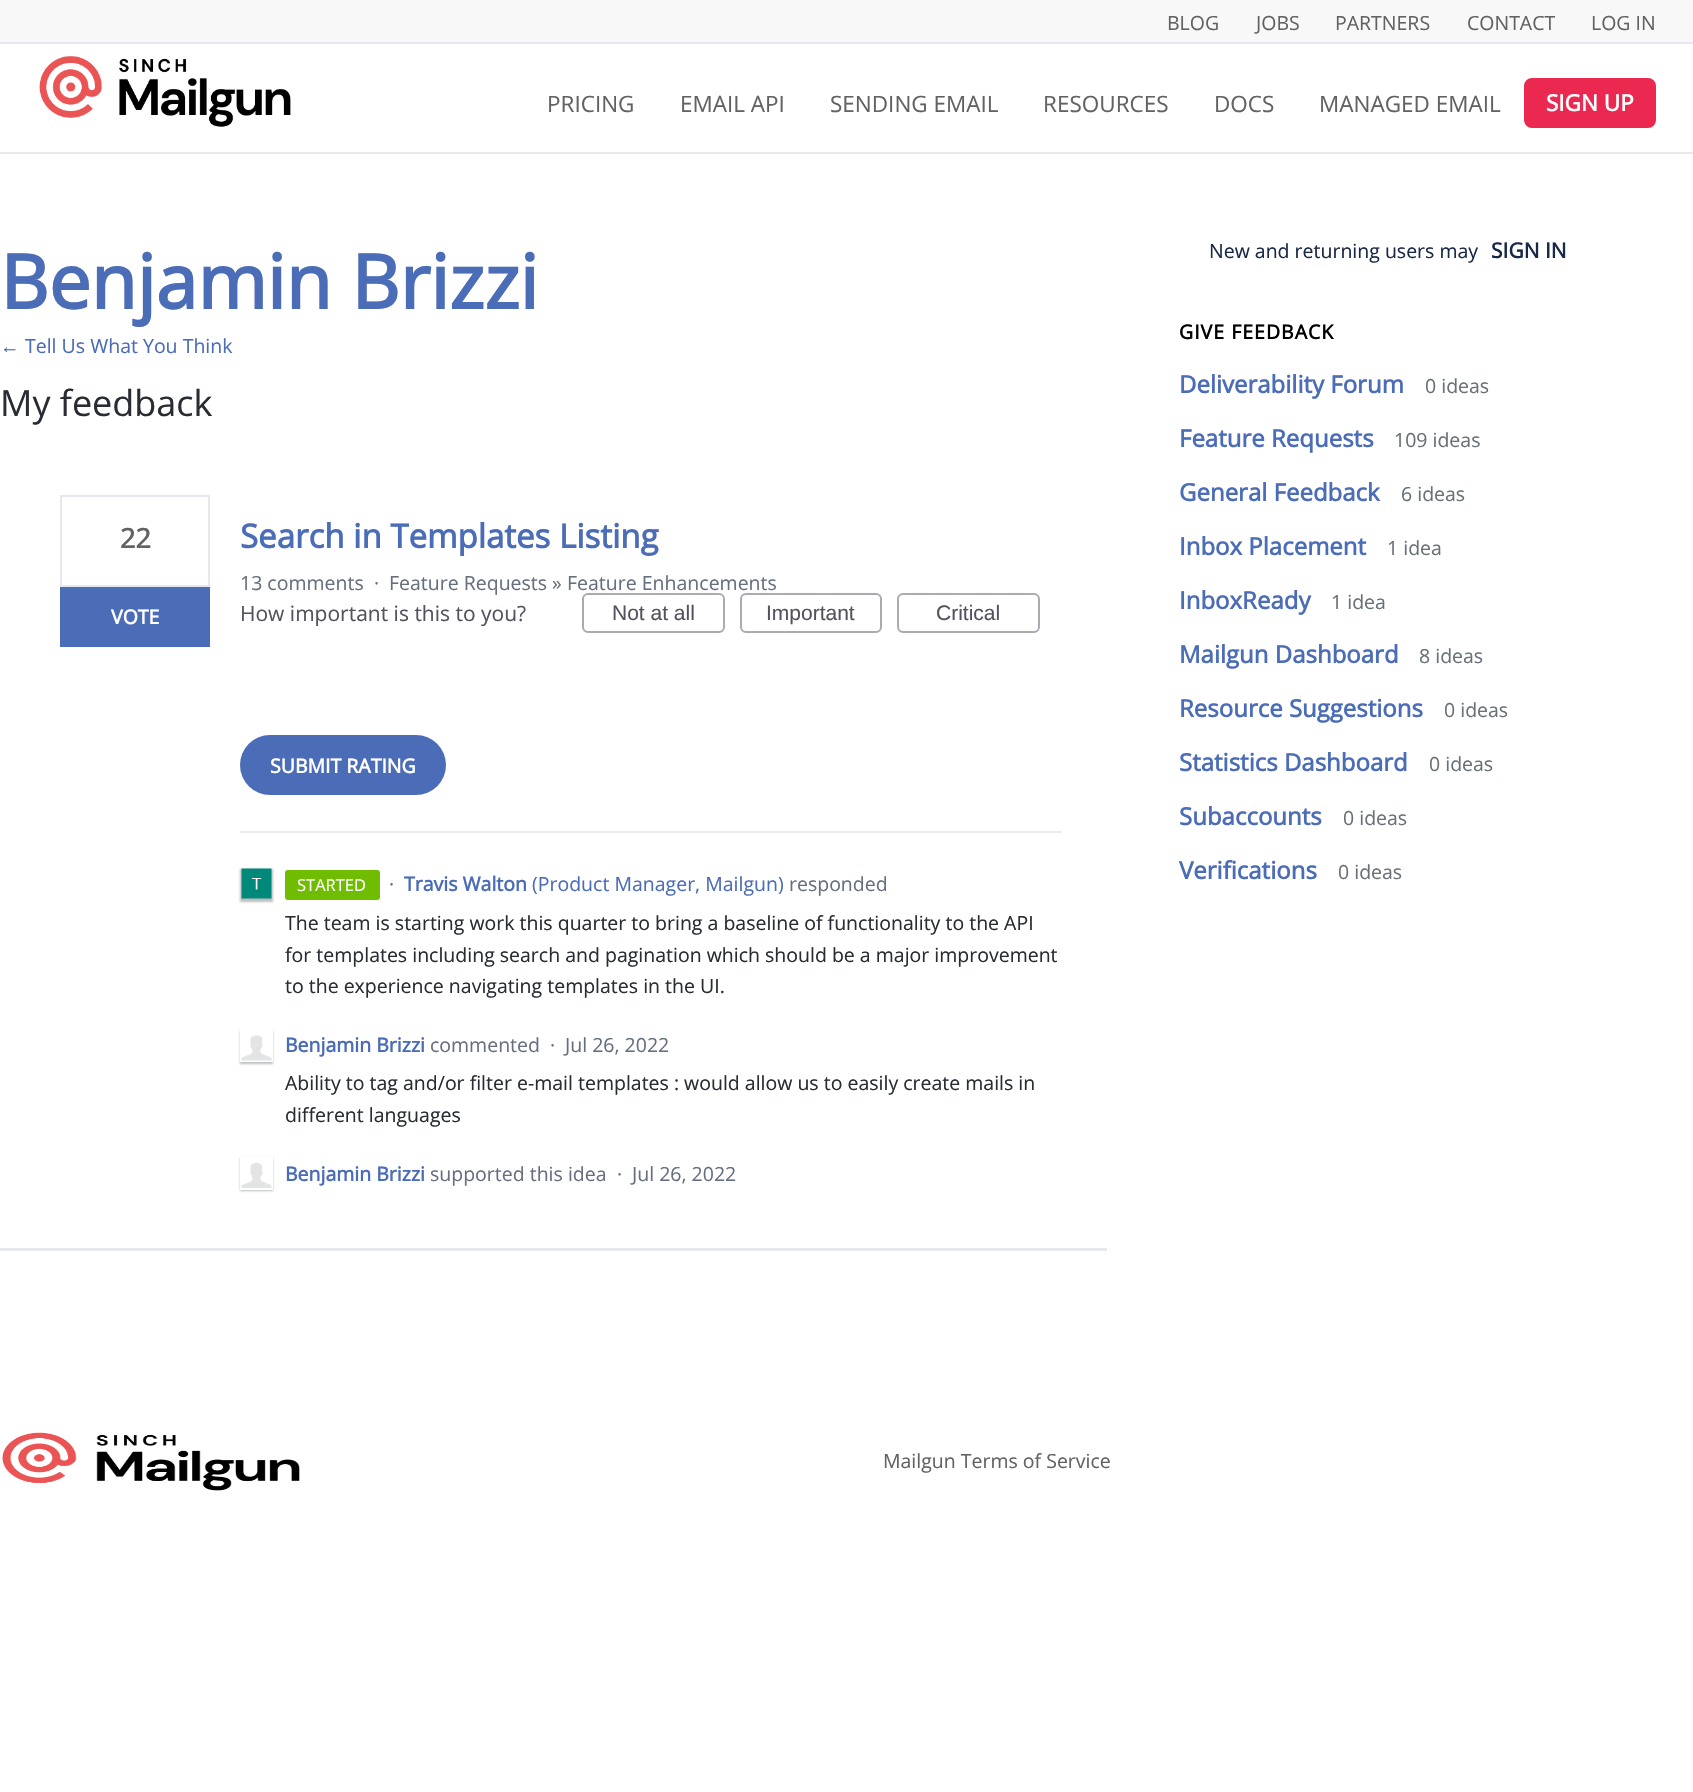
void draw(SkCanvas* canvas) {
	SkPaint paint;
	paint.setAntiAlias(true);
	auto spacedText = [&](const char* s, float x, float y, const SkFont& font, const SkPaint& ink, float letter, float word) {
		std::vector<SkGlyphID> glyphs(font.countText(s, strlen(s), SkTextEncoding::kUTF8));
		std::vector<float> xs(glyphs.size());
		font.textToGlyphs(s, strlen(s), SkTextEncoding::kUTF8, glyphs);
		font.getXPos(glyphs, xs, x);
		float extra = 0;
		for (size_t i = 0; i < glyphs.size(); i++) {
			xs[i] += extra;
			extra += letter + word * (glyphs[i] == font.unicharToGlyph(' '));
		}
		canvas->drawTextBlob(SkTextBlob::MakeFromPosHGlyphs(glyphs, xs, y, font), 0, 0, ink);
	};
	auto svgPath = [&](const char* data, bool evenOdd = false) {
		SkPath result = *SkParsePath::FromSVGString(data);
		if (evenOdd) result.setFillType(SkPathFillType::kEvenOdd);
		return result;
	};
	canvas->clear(0xffffffff);
	paint.setColor(0xffe7e8ef);
	canvas->drawRect(SkRect::MakeXYWH(0, 152, 1693, 2), paint);
	paint.setColor(0xfff8f8f8);
	canvas->drawRect(SkRect::MakeXYWH(0, 0, 1693, 42), paint);
	paint.setColor(0xffe7e8ef);
	canvas->drawRect(SkRect::MakeXYWH(0, 42, 1693, 2), paint);
	SkFont f1(fontMgr->matchFamilyStyle("Open Sans", SkFontStyle::Normal()), 19.5);
	f1.setSubpixel(true);
	paint.setColor(0xff626262);
	canvas->drawString("BLOG", 1167, 30, f1, paint);
	canvas->drawString("JOBS", 1256, 30, f1, paint);
	canvas->drawString("PARTNERS", 1335, 30, f1, paint);
	canvas->drawString("CONTACT", 1467, 30, f1, paint);
	canvas->drawString("LOG IN", 1591, 30, f1, paint);
	canvas->drawImageRect(SkImages::DeferredFromEncodedData(SkData::MakeFromFileName("img1.png")), SkRect::MakeXYWH(39, 56, 252, 71), SkSamplingOptions());
	SkFont f2(fontMgr->matchFamilyStyle("Open Sans", SkFontStyle::Normal()), 22.5);
	f2.setSubpixel(true);
	canvas->drawString("PRICING", 547, 112, f2, paint);
	canvas->drawString("EMAIL API", 680, 112, f2, paint);
	canvas->drawString("SENDING EMAIL", 830, 112, f2, paint);
	canvas->drawString("RESOURCES", 1043, 112, f2, paint);
	canvas->drawString("DOCS", 1214, 112, f2, paint);
	canvas->drawString("MANAGED EMAIL", 1319, 112, f2, paint);
	paint.setColor(0xffeb284f);
	canvas->drawRoundRect(SkRect::MakeXYWH(1525, 79, 130, 48), 7, 7, paint);
	paint.setStroke(true);
	paint.setStrokeWidth(2);
	canvas->drawRoundRect(SkRect::MakeXYWH(1525, 79, 130, 48), 7, 7, paint);
	SkFont f3(fontMgr->matchFamilyStyle("Open Sans", SkFontStyle::Bold()), 22.5);
	f3.setSubpixel(true);
	paint.setStroke(false);
	paint.setColor(0xffffffff);
	canvas->drawString("SIGN UP", 1546, 111, f3, paint);
	SkFont f4(fontMgr->matchFamilyStyle("Open Sans", SkFontStyle::Bold()), 75);
	f4.setSubpixel(true);
	paint.setColor(0xff4b6cb7);
	canvas->drawString("Benjamin Brizzi", 0, 309, f4, paint);
	SkFont f5(fontMgr->matchFamilyStyle("Liberation Sans", SkFontStyle::Normal()), 19.5);
	f5.setSubpixel(true);
	canvas->drawString("←", 0, 353, f5, paint);
	canvas->drawString("Tell Us What You Think", 25, 353, f1, paint);
	SkFont f6(fontMgr->matchFamilyStyle("Open Sans", SkFontStyle::Normal()), 36);
	f6.setSubpixel(true);
	paint.setColor(0xff292c33);
	canvas->drawString("My feedback", 0, 416, f6, paint);
	paint.setColor(0xffe7e8ef);
	canvas->drawRect(SkRect::MakeXYWH(0, 1248, 1107, 3), paint);
	paint.setStroke(true);
	canvas->drawRect(SkRect::MakeXYWH(61, 496, 148, 90), paint);
	SkFont f7(fontMgr->matchFamilyStyle("Open Sans", SkFontStyle::Bold()), 27);
	f7.setSubpixel(true);
	paint.setStroke(false);
	paint.setColor(0xff626262);
	canvas->drawString("22", 120, 548, f7, paint);
	paint.setColor(0xff4b6cb7);
	canvas->drawRect(SkRect::MakeXYWH(60, 587, 150, 60), paint);
	SkFont f8(fontMgr->matchFamilyStyle("Open Sans", SkFontStyle::Bold()), 19.5);
	f8.setSubpixel(true);
	paint.setColor(0xffffffff);
	canvas->drawString("VOTE", 111, 624, f8, paint);
	SkFont f9(fontMgr->matchFamilyStyle("Open Sans", SkFontStyle::Bold()), 33);
	f9.setSubpixel(true);
	paint.setColor(0xff4b6cb7);
	canvas->drawString("Search in Templates Listing", 240, 548, f9, paint);
	paint.setColor(0xff666f80);
	canvas->drawString("13 comments", 240, 590, f1, paint);
	paint.setColor(0xff697077);
	canvas->drawString("·", 374, 590, f1, paint);
	paint.setColor(0xff666f80);
	canvas->drawString("Feature Requests", 389, 590, f1, paint);
	paint.setColor(0xff697077);
	canvas->drawString("»", 552, 590, f1, paint);
	paint.setColor(0xff666f80);
	canvas->drawString("Feature Enhancements", 567, 590, f1, paint);
	paint.setColor(0xffebebf1);
	canvas->drawRect(SkRect::MakeXYWH(240, 831, 822, 2), paint);
	SkFont f10(fontMgr->matchFamilyStyle("Open Sans", SkFontStyle::Normal()), 21);
	f10.setSubpixel(true);
	paint.setColor(0xff525260);
	canvas->drawString("How important is this to you?", 240, 621, f10, paint);
	paint.setStroke(true);
	paint.setColor(0xffaaaab2);
	canvas->drawRoundRect(SkRect::MakeXYWH(583, 594, 141, 38), 5, 5, paint);
	SkFont f11(fontMgr->matchFamilyStyle("Liberation Sans", SkFontStyle::Normal()), 21);
	f11.setSubpixel(true);
	paint.setStroke(false);
	paint.setColor(0xff525260);
	canvas->drawString("Not at all", 612, 620, f11, paint);
	paint.setStroke(true);
	paint.setColor(0xffaaaab2);
	canvas->drawRoundRect(SkRect::MakeXYWH(741, 594, 140, 38), 5, 5, paint);
	paint.setStroke(false);
	paint.setColor(0xff525260);
	canvas->drawString("Important", 766, 620, f11, paint);
	paint.setStroke(true);
	paint.setColor(0xffaaaab2);
	canvas->drawRoundRect(SkRect::MakeXYWH(898, 594, 141, 38), 5, 5, paint);
	paint.setStroke(false);
	paint.setColor(0xff525260);
	canvas->drawString("Critical", 936, 620, f11, paint);
	paint.setColor(0xff4b6cb7);
	canvas->drawRoundRect(SkRect::MakeXYWH(240, 735, 206, 60), 30, 30, paint);
	paint.setColor(0xffffffff);
	canvas->drawString("SUBMIT RATING", 270, 773, f8, paint);
	paint.setColor(0xff6fbc00);
	canvas->drawRoundRect(SkRect::MakeXYWH(285, 870, 95, 30), 3, 3, paint);
	SkFont f12(fontMgr->matchFamilyStyle("Open Sans", SkFontStyle::Normal()), 16.5);
	f12.setSubpixel(true);
	paint.setColor(0xffffffff);
	canvas->drawString("STARTED", 297, 891, f12, paint);
	paint.setColor(0xff697077);
	canvas->drawString("·", 389, 891, f1, paint);
	paint.setColor(0x40000000);
	paint.setMaskFilter(SkMaskFilter::MakeBlur(kNormal_SkBlurStyle, 1));
	canvas->drawRect(SkRect::MakeXYWH(240, 869, 33, 33), paint);
	paint.setMaskFilter(nullptr);
	canvas->drawImageRect(SkImages::DeferredFromEncodedData(SkData::MakeFromFileName("img2.png")), SkRect::MakeXYWH(241, 868, 31, 31), SkSamplingOptions());
	paint.setColor(0xff4b6cb7);
	canvas->drawString("Travis Walton", 404, 891, f8, paint);
	canvas->drawString("(Product Manager, Mailgun)", 532, 891, f1, paint);
	paint.setColor(0xff666f80);
	canvas->drawString("responded", 789, 891, f1, paint);
	paint.setColor(0xff292c33);
	canvas->drawString("The team is starting work this quarter to bring a baseline of functionality to the API", 285, 930, f1, paint);
	canvas->drawString("for templates including search and pagination which should be a major improvement", 285, 962, f1, paint);
	canvas->drawString("to the experience navigating templates in the UI.", 285, 993, f1, paint);
	canvas->save();
	canvas->clipPath(svgPath("M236 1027H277V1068H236ZM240 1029H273V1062H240Z", true), true);
	paint.setColor(0x40000000);
	paint.setMaskFilter(SkMaskFilter::MakeBlur(kNormal_SkBlurStyle, 1));
	canvas->drawRect(SkRect::MakeXYWH(240, 1031, 33, 33), paint);
	paint.setMaskFilter(nullptr);
	canvas->restore();
	canvas->drawImageRect(SkImages::DeferredFromEncodedData(SkData::MakeFromFileName("img3.png")), SkRect::MakeXYWH(241, 1035, 31, 26), SkSamplingOptions());
	paint.setColor(0xff4b6cb7);
	canvas->drawString("Benjamin Brizzi", 285, 1052, f8, paint);
	paint.setColor(0xff666f80);
	canvas->drawString("commented", 430, 1052, f1, paint);
	paint.setColor(0xff697077);
	canvas->drawString("·", 550, 1052, f1, paint);
	paint.setColor(0xff666f80);
	canvas->drawString("Jul 26, 2022", 565, 1052, f1, paint);
	paint.setColor(0xff292c33);
	canvas->drawString("Ability to tag and/or filter e-mail templates : would allow us to easily create mails in", 285, 1090, f1, paint);
	canvas->drawString("different languages", 285, 1122, f1, paint);
	canvas->save();
	canvas->clipPath(svgPath("M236 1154H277V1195H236ZM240 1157H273V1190H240Z", true), true);
	paint.setColor(0x40000000);
	paint.setMaskFilter(SkMaskFilter::MakeBlur(kNormal_SkBlurStyle, 1));
	canvas->drawRect(SkRect::MakeXYWH(240, 1158, 33, 33), paint);
	paint.setMaskFilter(nullptr);
	canvas->restore();
	paint.setStroke(true);
	paint.setColor(0xffffffff);
	canvas->drawRect(SkRect::MakeXYWH(241, 1158, 31, 31), paint);
	canvas->drawImageRect(SkImages::DeferredFromEncodedData(SkData::MakeFromFileName("img4.png")), SkRect::MakeXYWH(241, 1162, 31, 26), SkSamplingOptions());
	paint.setStroke(false);
	paint.setColor(0xff4b6cb7);
	canvas->drawString("Benjamin Brizzi", 285, 1181, f8, paint);
	paint.setColor(0xff666f80);
	canvas->drawString("supported this idea", 430, 1181, f1, paint);
	paint.setColor(0xff697077);
	canvas->drawString("·", 617, 1181, f1, paint);
	paint.setColor(0xff666f80);
	canvas->drawString("Jul 26, 2022", 632, 1181, f1, paint);
	paint.setColor(0xff182848);
	canvas->drawString("New and returning users may", 1209, 258, f1, paint);
	SkFont f13(fontMgr->matchFamilyStyle("Open Sans", SkFontStyle::Bold()), 21);
	f13.setSubpixel(true);
	canvas->drawString("SIGN IN", 1491, 258, f13, paint);
	paint.setColor(0xff000000);
	spacedText("GIVE FEEDBACK", 1179, 339, f8, paint, 1, 0);
	SkFont f14(fontMgr->matchFamilyStyle("Open Sans", SkFontStyle::Bold()), 24);
	f14.setSubpixel(true);
	paint.setColor(0xff4b6cb7);
	canvas->drawString("Deliverability Forum", 1179, 393, f14, paint);
	paint.setColor(0xff697077);
	canvas->drawString("0 ideas", 1425, 393, f1, paint);
	paint.setColor(0xff4b6cb7);
	canvas->drawString("Feature Requests", 1179, 447, f14, paint);
	paint.setColor(0xff697077);
	canvas->drawString("109 ideas", 1394, 447, f1, paint);
	paint.setColor(0xff4b6cb7);
	canvas->drawString("General Feedback", 1179, 501, f14, paint);
	paint.setColor(0xff697077);
	canvas->drawString("6 ideas", 1401, 501, f1, paint);
	paint.setColor(0xff4b6cb7);
	canvas->drawString("Inbox Placement", 1179, 555, f14, paint);
	paint.setColor(0xff697077);
	canvas->drawString("1 idea", 1387, 555, f1, paint);
	paint.setColor(0xff4b6cb7);
	canvas->drawString("InboxReady", 1179, 609, f14, paint);
	paint.setColor(0xff697077);
	canvas->drawString("1 idea", 1331, 609, f1, paint);
	paint.setColor(0xff4b6cb7);
	canvas->drawString("Mailgun Dashboard", 1179, 663, f14, paint);
	paint.setColor(0xff697077);
	canvas->drawString("8 ideas", 1419, 663, f1, paint);
	paint.setColor(0xff4b6cb7);
	canvas->drawString("Resource Suggestions", 1179, 717, f14, paint);
	paint.setColor(0xff697077);
	canvas->drawString("0 ideas", 1444, 717, f1, paint);
	paint.setColor(0xff4b6cb7);
	canvas->drawString("Statistics Dashboard", 1179, 771, f14, paint);
	paint.setColor(0xff697077);
	canvas->drawString("0 ideas", 1429, 771, f1, paint);
	paint.setColor(0xff4b6cb7);
	canvas->drawString("Subaccounts", 1179, 825, f14, paint);
	paint.setColor(0xff697077);
	canvas->drawString("0 ideas", 1343, 825, f1, paint);
	paint.setColor(0xff4b6cb7);
	canvas->drawString("Verifications", 1179, 879, f14, paint);
	paint.setColor(0xff697077);
	canvas->drawString("0 ideas", 1338, 879, f1, paint);
	canvas->drawImageRect(SkImages::DeferredFromEncodedData(SkData::MakeFromFileName("img5.png")), SkRect::MakeXYWH(2, 1432, 298, 59), SkSamplingOptions());
	paint.setColor(0xff626262);
	canvas->drawString("Mailgun Terms of Service", 883, 1468, f1, paint);
}
